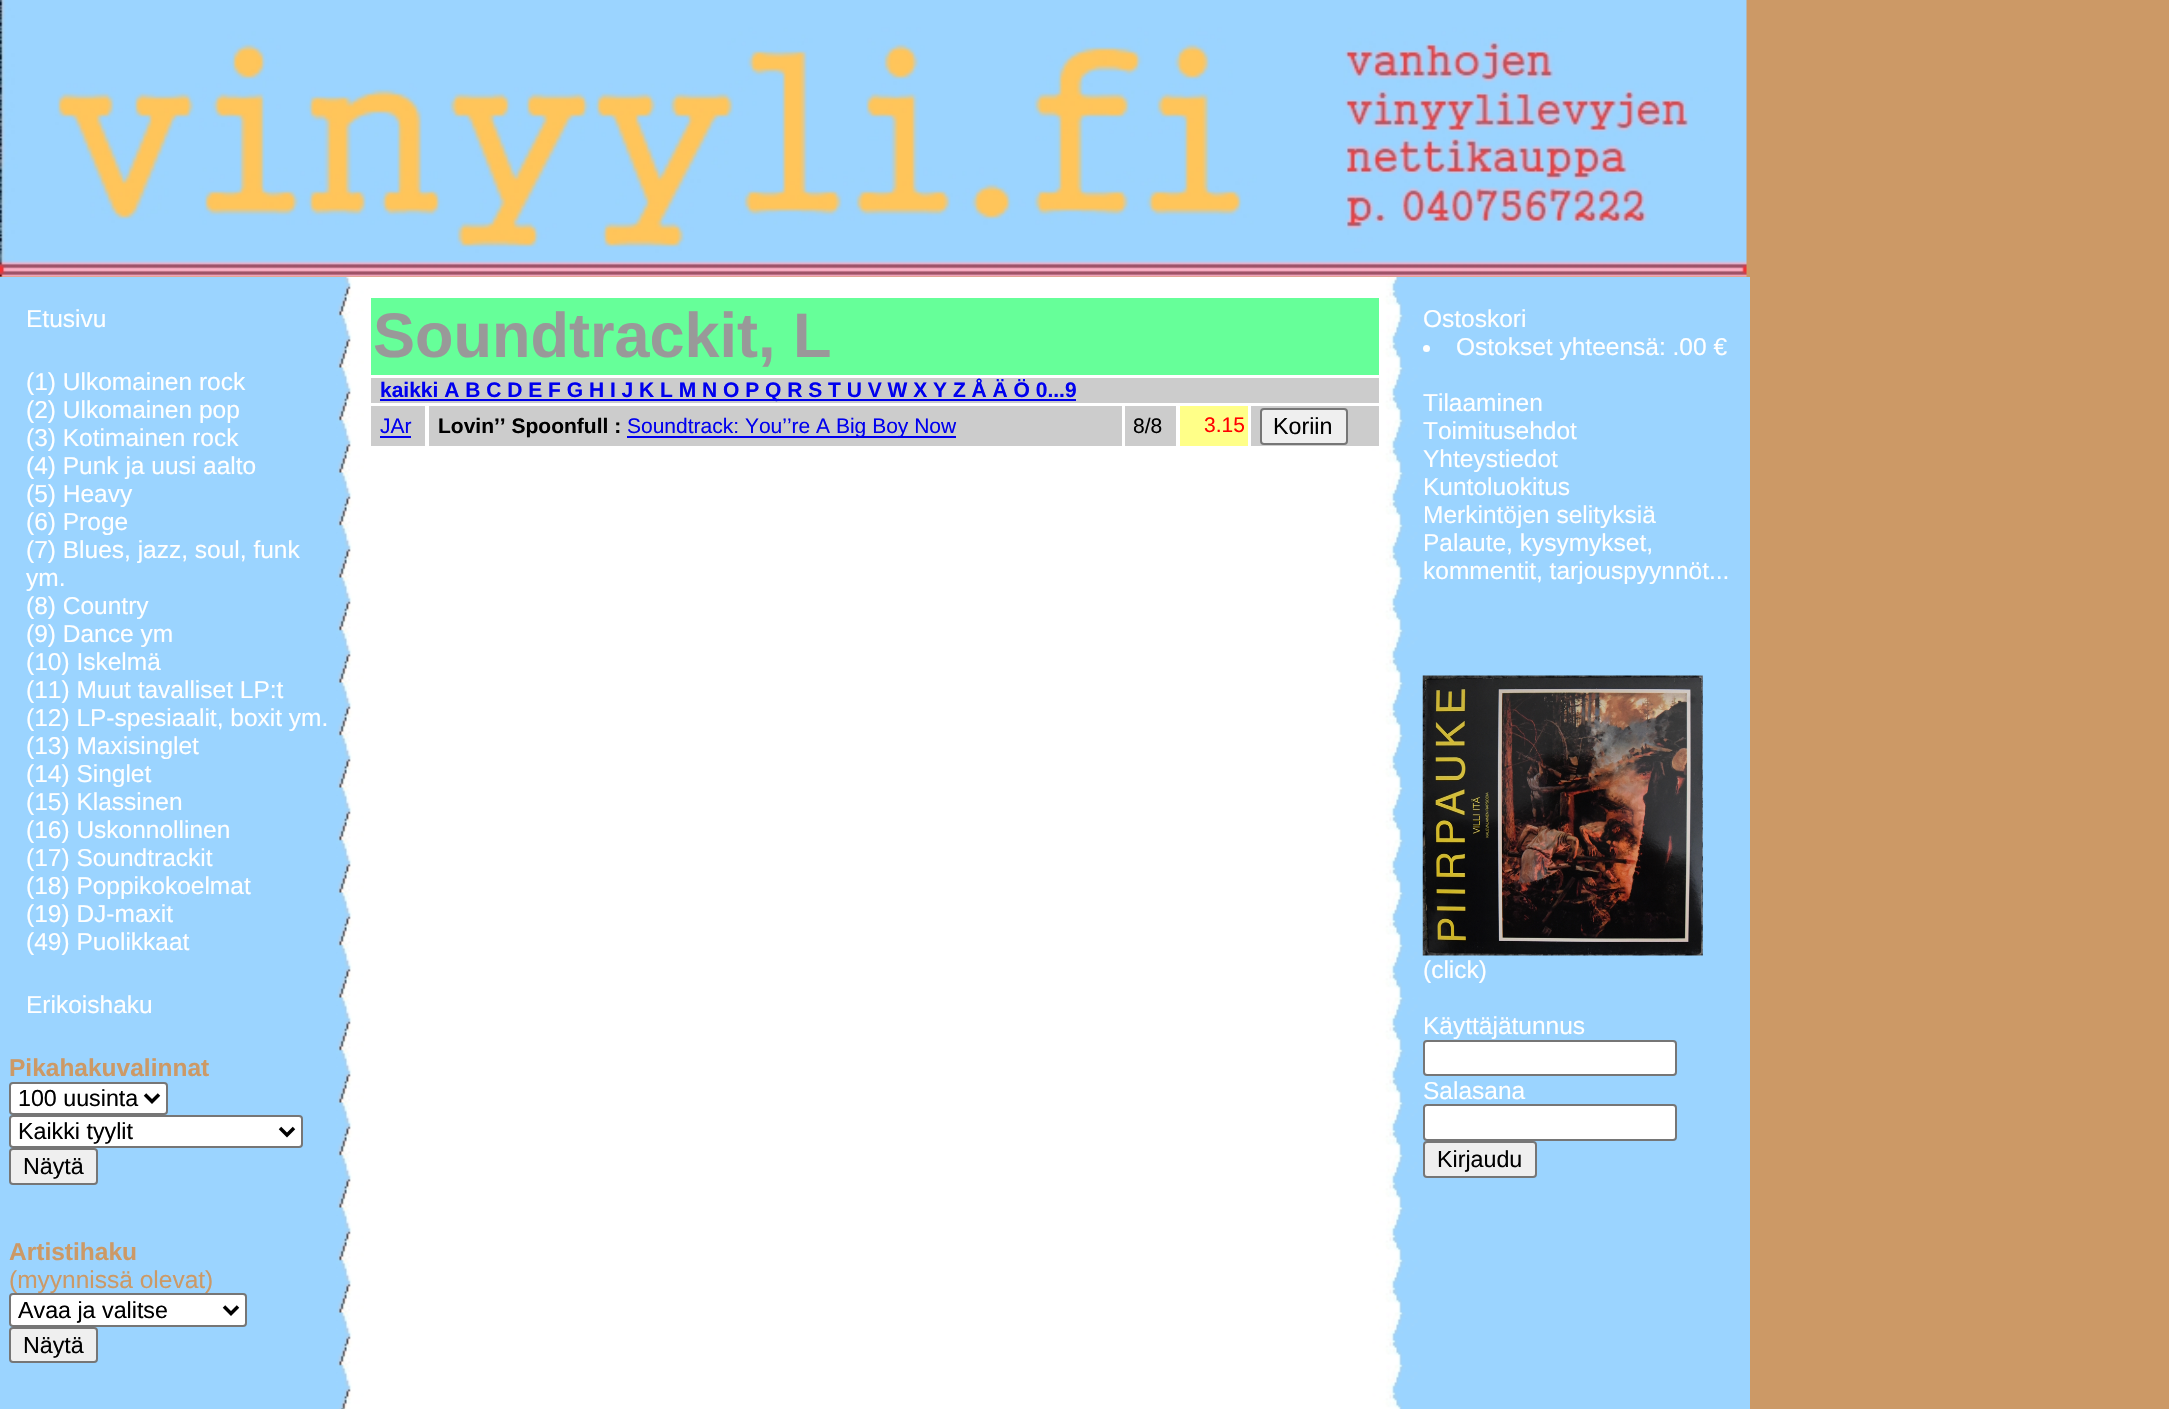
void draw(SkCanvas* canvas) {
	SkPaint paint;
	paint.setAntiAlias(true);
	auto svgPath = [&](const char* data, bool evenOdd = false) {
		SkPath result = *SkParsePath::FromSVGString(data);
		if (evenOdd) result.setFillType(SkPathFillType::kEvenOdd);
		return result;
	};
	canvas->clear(0xffcc9966);
	canvas->drawImageRect(SkImages::DeferredFromEncodedData(SkData::MakeFromFileName("img1.png")), SkRect::MakeXYWH(0, 277, 1750, 1132), SkSamplingOptions());
	canvas->drawImageRect(SkImages::DeferredFromEncodedData(SkData::MakeFromFileName("img2.png")), SkRect::MakeXYWH(0, 0, 1747, 277), SkSamplingOptions());
	SkFont f1(fontMgr->matchFamilyStyle("Liberation Sans", SkFontStyle::Normal()), 24.5);
	f1.setSubpixel(true);
	paint.setColor(0xffffffff);
	canvas->drawString("Etusivu", 26, 327, f1, paint);
	canvas->drawString("(1) Ulkomainen rock", 26, 390, f1, paint);
	canvas->drawString("(2) Ulkomainen pop", 26, 418, f1, paint);
	canvas->drawString("(3) Kotimainen rock", 26, 446, f1, paint);
	canvas->drawString("(4) Punk ja uusi aalto", 26, 474, f1, paint);
	canvas->drawString("(5) Heavy", 26, 502, f1, paint);
	canvas->drawString("(6) Proge", 26, 530, f1, paint);
	canvas->drawString("(7) Blues, jazz, soul, funk", 26, 558, f1, paint);
	canvas->drawString("ym.", 26, 586, f1, paint);
	canvas->drawString("(8) Country", 26, 614, f1, paint);
	canvas->drawString("(9) Dance ym", 26, 642, f1, paint);
	canvas->drawString("(10) Iskelmä", 26, 670, f1, paint);
	canvas->drawString("(11) Muut tavalliset LP:t", 26, 698, f1, paint);
	canvas->drawString("(12) LP-spesiaalit, boxit ym.", 26, 726, f1, paint);
	canvas->drawString("(13) Maxisinglet", 26, 754, f1, paint);
	canvas->drawString("(14) Singlet", 26, 782, f1, paint);
	canvas->drawString("(15) Klassinen", 26, 810, f1, paint);
	canvas->drawString("(16) Uskonnollinen", 26, 838, f1, paint);
	canvas->drawString("(17) Soundtrackit", 26, 866, f1, paint);
	canvas->drawString("(18) Poppikokoelmat", 26, 894, f1, paint);
	canvas->drawString("(19) DJ-maxit", 26, 922, f1, paint);
	canvas->drawString("(49) Puolikkaat", 26, 950, f1, paint);
	canvas->drawString("Erikoishaku", 26, 1013, f1, paint);
	SkFont f2(fontMgr->matchFamilyStyle("Liberation Sans", SkFontStyle::Bold()), 24.5);
	f2.setSubpixel(true);
	paint.setColor(0xffcc9966);
	canvas->drawString("Pikahakuvalinnat", 9, 1076, f2, paint);
	paint.setColor(0xffffffff);
	canvas->drawRoundRect(SkRect::MakeXYWH(10, 1083, 157, 31), 3, 3, paint);
	paint.setStroke(true);
	paint.setStrokeWidth(2);
	paint.setColor(0xff767676);
	canvas->drawRoundRect(SkRect::MakeXYWH(10, 1083, 157, 31), 3, 3, paint);
	paint.setStrokeWidth(3.5);
	paint.setColor(0xff000000);
	canvas->drawPath(svgPath("M145 1094.5L152 1101.5L159 1094.5"), paint);
	SkFont f3(fontMgr->matchFamilyStyle("Liberation Sans", SkFontStyle::Normal()), 23.25);
	f3.setSubpixel(true);
	paint.setStroke(false);
	canvas->drawString("100 uusinta", 18, 1106, f3, paint);
	paint.setColor(0xffffffff);
	canvas->drawRoundRect(SkRect::MakeXYWH(10, 1116, 292, 31), 3, 3, paint);
	paint.setStroke(true);
	paint.setStrokeWidth(2);
	paint.setColor(0xff767676);
	canvas->drawRoundRect(SkRect::MakeXYWH(10, 1116, 292, 31), 3, 3, paint);
	paint.setStrokeWidth(3.5);
	paint.setColor(0xff000000);
	canvas->drawPath(svgPath("M280 1128L287 1135L294 1128"), paint);
	paint.setStroke(false);
	canvas->drawString("Kaikki tyylit", 18, 1139, f3, paint);
	paint.setColor(0xffefefef);
	canvas->drawRoundRect(SkRect::MakeXYWH(10, 1149, 87, 35), 3, 3, paint);
	paint.setStroke(true);
	paint.setStrokeWidth(2);
	paint.setColor(0xff767676);
	canvas->drawRoundRect(SkRect::MakeXYWH(10, 1149, 87, 35), 3, 3, paint);
	paint.setStroke(false);
	paint.setColor(0xff000000);
	canvas->drawString("Näytä", 23, 1174, f3, paint);
	paint.setColor(0xffcc9966);
	canvas->drawString("Artistihaku", 9, 1260, f2, paint);
	canvas->drawString("(myynnissä olevat)", 9, 1288, f1, paint);
	paint.setColor(0xffffffff);
	canvas->drawRoundRect(SkRect::MakeXYWH(10, 1294, 236, 32), 3, 3, paint);
	paint.setStroke(true);
	paint.setColor(0xff767676);
	canvas->drawRoundRect(SkRect::MakeXYWH(10, 1294, 236, 32), 3, 3, paint);
	paint.setStrokeWidth(3.5);
	paint.setColor(0xff000000);
	canvas->drawPath(svgPath("M224 1306.5L231 1313.5L238 1306.5"), paint);
	paint.setStroke(false);
	canvas->drawString("Avaa ja valitse", 18, 1318, f3, paint);
	paint.setColor(0xffefefef);
	canvas->drawRoundRect(SkRect::MakeXYWH(10, 1328, 87, 34), 3, 3, paint);
	paint.setStroke(true);
	paint.setStrokeWidth(2);
	paint.setColor(0xff767676);
	canvas->drawRoundRect(SkRect::MakeXYWH(10, 1328, 87, 34), 3, 3, paint);
	paint.setStroke(false);
	paint.setColor(0xff000000);
	canvas->drawString("Näytä", 23, 1353, f3, paint);
	paint.setColor(0xff66ff99);
	canvas->drawRect(SkRect::MakeXYWH(371, 298, 1008, 77), paint);
	SkFont f4(fontMgr->matchFamilyStyle("Liberation Sans", SkFontStyle::Bold()), 63);
	f4.setSubpixel(true);
	paint.setColor(0xff999999);
	canvas->drawString("Soundtrackit, L", 373, 357, f4, paint);
	paint.setColor(0xffcccccc);
	canvas->drawRect(SkRect::MakeXYWH(371, 378, 1008, 25), paint);
	paint.setColor(0xff0000ee);
	canvas->drawRect(SkRect::MakeXYWH(380, 399, 696, 2), paint);
	SkFont f5(fontMgr->matchFamilyStyle("Liberation Sans", SkFontStyle::Bold()), 21);
	f5.setSubpixel(true);
	canvas->drawString("kaikki A B C D E F G H I J K L M N O P Q R S T U V W X Y Z Å Ä Ö 0...9", 380, 397, f5, paint);
	paint.setColor(0xffcccccc);
	canvas->drawRect(SkRect::MakeXYWH(371, 406, 54, 40), paint);
	SkFont f6(fontMgr->matchFamilyStyle("Liberation Sans", SkFontStyle::Normal()), 21);
	f6.setSubpixel(true);
	paint.setColor(0xff0000ee);
	canvas->drawString("JAr", 380, 433, f6, paint);
	canvas->drawRect(SkRect::MakeXYWH(380, 436, 31, 2), paint);
	paint.setColor(0xffcccccc);
	canvas->drawRect(SkRect::MakeXYWH(429, 406, 693, 40), paint);
	paint.setColor(0xff000000);
	canvas->drawString("Lovin’’ Spoonfull :", 438, 433, f5, paint);
	paint.setColor(0xff0000ee);
	canvas->drawRect(SkRect::MakeXYWH(627, 436, 329, 2), paint);
	canvas->drawString("Soundtrack: You’’re A Big Boy Now", 627, 433, f6, paint);
	paint.setColor(0xffcccccc);
	canvas->drawRect(SkRect::MakeXYWH(1125, 406, 51, 40), paint);
	paint.setColor(0xff000000);
	canvas->drawString("8/8", 1133, 433, f6, paint);
	paint.setColor(0xffffff88);
	canvas->drawRect(SkRect::MakeXYWH(1180, 406, 68, 40), paint);
	paint.setColor(0xffff0000);
	canvas->drawString("3.15", 1204, 432, f6, paint);
	paint.setColor(0xffcccccc);
	canvas->drawRect(SkRect::MakeXYWH(1251, 406, 128, 40), paint);
	paint.setColor(0xffefefef);
	canvas->drawRoundRect(SkRect::MakeXYWH(1261, 409, 86, 35), 3, 3, paint);
	paint.setStroke(true);
	paint.setColor(0xff767676);
	canvas->drawRoundRect(SkRect::MakeXYWH(1261, 409, 86, 35), 3, 3, paint);
	paint.setStroke(false);
	paint.setColor(0xff000000);
	canvas->drawString("Koriin", 1273, 434, f3, paint);
	paint.setColor(0xffffffff);
	canvas->drawString("Ostoskori", 1423, 327, f1, paint);
	canvas->drawCircle(1426.5, 348.5, 3.5, paint);
	canvas->drawString("Ostokset yhteensä: .00 €", 1456, 355, f1, paint);
	canvas->drawString("Tilaaminen", 1423, 411, f1, paint);
	canvas->drawString("Toimitusehdot", 1423, 439, f1, paint);
	canvas->drawString("Yhteystiedot", 1423, 467, f1, paint);
	canvas->drawString("Kuntoluokitus", 1423, 495, f1, paint);
	canvas->drawString("Merkintöjen selityksiä", 1423, 523, f1, paint);
	canvas->drawString("Palaute, kysymykset,", 1423, 551, f1, paint);
	canvas->drawString("kommentit, tarjouspyynnöt...", 1423, 579, f1, paint);
	canvas->drawImageRect(SkImages::DeferredFromEncodedData(SkData::MakeFromFileName("img3.png")), SkRect::MakeXYWH(1422, 675, 281, 281), SkSamplingOptions());
	canvas->drawString("(click)", 1423, 978, f1, paint);
	canvas->drawString("Käyttäjätunnus", 1423, 1034, f1, paint);
	canvas->drawRoundRect(SkRect::MakeXYWH(1424, 1041, 252, 34), 3, 3, paint);
	paint.setStroke(true);
	paint.setColor(0xff767676);
	canvas->drawRoundRect(SkRect::MakeXYWH(1424, 1041, 252, 34), 3, 3, paint);
	paint.setStroke(false);
	paint.setColor(0xffffffff);
	canvas->drawString("Salasana", 1423, 1099, f1, paint);
	canvas->drawRoundRect(SkRect::MakeXYWH(1424, 1105, 252, 35), 3, 3, paint);
	paint.setStroke(true);
	paint.setColor(0xff767676);
	canvas->drawRoundRect(SkRect::MakeXYWH(1424, 1105, 252, 35), 3, 3, paint);
	paint.setStroke(false);
	paint.setColor(0xffefefef);
	canvas->drawRoundRect(SkRect::MakeXYWH(1424, 1142, 112, 35), 3, 3, paint);
	paint.setStroke(true);
	paint.setColor(0xff767676);
	canvas->drawRoundRect(SkRect::MakeXYWH(1424, 1142, 112, 35), 3, 3, paint);
	paint.setStroke(false);
	paint.setColor(0xff000000);
	canvas->drawString("Kirjaudu", 1437, 1167, f3, paint);
}
